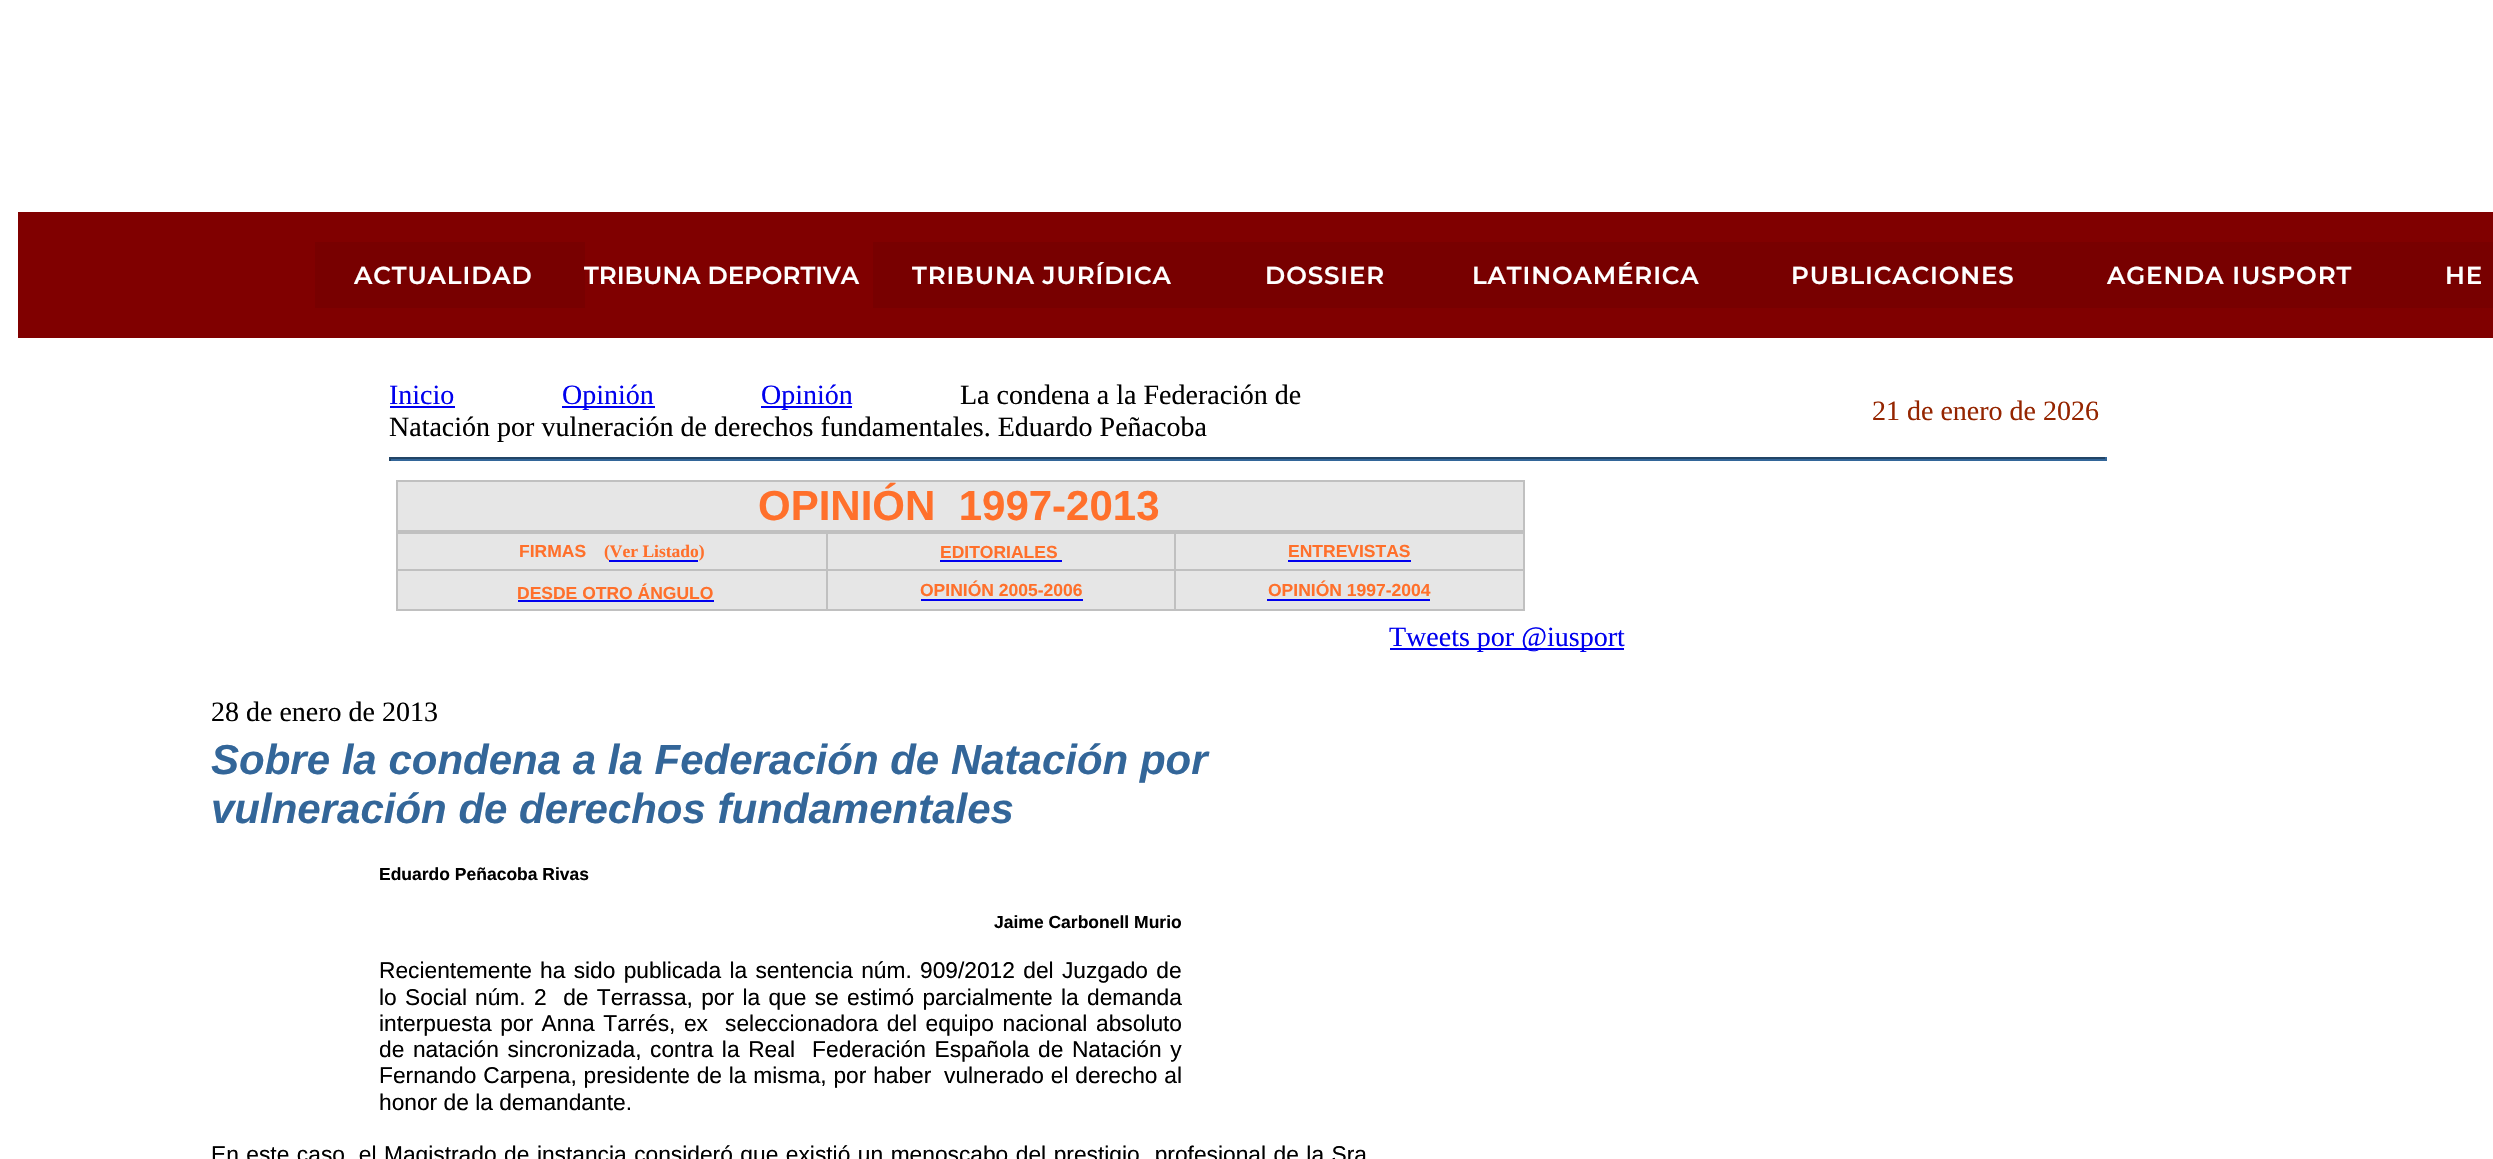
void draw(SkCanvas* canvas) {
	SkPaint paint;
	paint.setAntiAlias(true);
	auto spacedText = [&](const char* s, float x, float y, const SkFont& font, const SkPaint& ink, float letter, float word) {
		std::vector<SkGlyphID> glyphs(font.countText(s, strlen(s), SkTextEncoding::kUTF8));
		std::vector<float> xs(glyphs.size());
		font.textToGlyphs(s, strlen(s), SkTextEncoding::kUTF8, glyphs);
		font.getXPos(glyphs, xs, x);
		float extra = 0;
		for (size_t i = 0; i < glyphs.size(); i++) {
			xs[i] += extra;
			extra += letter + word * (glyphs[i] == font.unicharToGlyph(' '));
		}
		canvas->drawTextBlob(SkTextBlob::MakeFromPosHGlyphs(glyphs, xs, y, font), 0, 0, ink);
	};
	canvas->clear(0xffffffff);
	paint.setColor(0xff800000);
	canvas->drawRect(SkRect::MakeXYWH(18, 212, 2475, 126), paint);
	paint.setColor(0xff780000);
	canvas->drawRect(SkRect::MakeXYWH(315, 242, 270, 66), paint);
	SkFont f1(fontMgr->matchFamilyStyle("Montserrat", SkFontStyle(600, SkFontStyle::kNormal_Width, SkFontStyle::kUpright_Slant)), 24.5);
	f1.setSubpixel(true);
	paint.setColor(0xffffffff);
	spacedText("ACTUALIDAD", 354, 284, f1, paint, 0.9, 0);
	canvas->drawString("TRIBUNA DEPORTIVA", 584, 284, f1, paint);
	paint.setColor(0xff780000);
	canvas->drawRect(SkRect::MakeXYWH(873, 242, 1620, 66), paint);
	paint.setColor(0xffffffff);
	spacedText("TRIBUNA JURÍDICA", 912, 284, f1, paint, 0.9, 0);
	spacedText("DOSSIER", 1265, 284, f1, paint, 0.9, 0);
	spacedText("LATINOAMÉRICA", 1472, 284, f1, paint, 0.9, 0);
	spacedText("PUBLICACIONES", 1791, 284, f1, paint, 0.9, 0);
	spacedText("AGENDA IUSPORT", 2107, 284, f1, paint, 0.9, 0);
	spacedText("HE", 2445, 284, f1, paint, 0.9, 0);
	SkFont f2(fontMgr->matchFamilyStyle("Liberation Serif", SkFontStyle::Normal()), 28);
	f2.setSubpixel(true);
	paint.setColor(0xff0000ee);
	canvas->drawString("Inicio", 389, 404, f2, paint);
	canvas->drawRect(SkRect::MakeXYWH(390, 406, 65, 2), paint);
	canvas->drawRect(SkRect::MakeXYWH(562, 406, 93, 2), paint);
	canvas->drawString("Opinión", 562, 404, f2, paint);
	canvas->drawRect(SkRect::MakeXYWH(761, 406, 91, 2), paint);
	canvas->drawString("Opinión", 761, 404, f2, paint);
	paint.setColor(0xff000000);
	canvas->drawString("La condena a la Federación de", 960, 404, f2, paint);
	canvas->drawString("Natación por vulneración de derechos fundamentales. Eduardo Peñacoba", 389, 436, f2, paint);
	paint.setColor(0xff952500);
	canvas->drawString("21 de enero de 2026", 1872, 420, f2, paint);
	paint.setColor(0xff336699);
	canvas->drawRect(SkRect::MakeXYWH(389, 459, 1718, 2), paint);
	paint.setColor(0xff224466);
	canvas->drawRect(SkRect::MakeXYWH(389, 457, 1718, 2), paint);
	paint.setColor(0xff336699);
	canvas->drawRect(SkRect::MakeXYWH(2105, 457, 2, 4), paint);
	paint.setColor(0xff224466);
	canvas->drawRect(SkRect::MakeXYWH(389, 457, 2, 4), paint);
	paint.setColor(0xffe6e6e6);
	canvas->drawRect(SkRect::MakeXYWH(398, 482, 1125, 48), paint);
	paint.setColor(0xffc0c0c0);
	canvas->drawRect(SkRect::MakeXYWH(396, 480, 1128, 2), paint);
	canvas->drawRect(SkRect::MakeXYWH(1523, 480, 2, 52), paint);
	canvas->drawRect(SkRect::MakeXYWH(396, 530, 1128, 4), paint);
	canvas->drawRect(SkRect::MakeXYWH(396, 480, 2, 52), paint);
	SkFont f3(fontMgr->matchFamilyStyle("Liberation Sans", SkFontStyle::Bold()), 42);
	f3.setSubpixel(true);
	paint.setColor(0xffff702b);
	canvas->drawString("OPINIÓN  1997-2013", 758, 520, f3, paint);
	paint.setColor(0xffe6e6e6);
	canvas->drawRect(SkRect::MakeXYWH(398, 534, 1125, 75), paint);
	paint.setColor(0xffc0c0c0);
	canvas->drawRect(SkRect::MakeXYWH(1523, 532, 2, 79), paint);
	canvas->drawRect(SkRect::MakeXYWH(396, 609, 1128, 2), paint);
	canvas->drawRect(SkRect::MakeXYWH(396, 532, 2, 79), paint);
	SkFont f4(fontMgr->matchFamilyStyle("Liberation Sans", SkFontStyle::Bold()), 17.5);
	f4.setSubpixel(true);
	paint.setColor(0xffff702b);
	canvas->drawString("FIRMAS", 519, 557, f4, paint);
	SkFont f5(fontMgr->matchFamilyStyle("Liberation Serif", SkFontStyle::Bold()), 17.5);
	f5.setSubpixel(true);
	canvas->drawString("(Ver Listado)", 604, 557, f5, paint);
	paint.setColor(0xff0000ee);
	canvas->drawRect(SkRect::MakeXYWH(609, 560, 89, 2), paint);
	paint.setColor(0xffc0c0c0);
	canvas->drawRect(SkRect::MakeXYWH(1174, 569, 350, 2), paint);
	canvas->drawRect(SkRect::MakeXYWH(1174, 569, 2, 42), paint);
	canvas->drawRect(SkRect::MakeXYWH(826, 569, 350, 2), paint);
	canvas->drawRect(SkRect::MakeXYWH(826, 569, 2, 42), paint);
	canvas->drawRect(SkRect::MakeXYWH(396, 569, 432, 2), paint);
	canvas->drawRect(SkRect::MakeXYWH(826, 532, 2, 39), paint);
	paint.setColor(0xffff702b);
	canvas->drawString("EDITORIALES", 940, 558, f4, paint);
	paint.setColor(0xff0000ee);
	canvas->drawRect(SkRect::MakeXYWH(940, 560, 122, 2), paint);
	paint.setColor(0xffc0c0c0);
	canvas->drawRect(SkRect::MakeXYWH(1174, 532, 2, 39), paint);
	paint.setColor(0xffff702b);
	canvas->drawString("ENTREVISTAS", 1288, 557, f4, paint);
	paint.setColor(0xff0000ee);
	canvas->drawRect(SkRect::MakeXYWH(1288, 560, 123, 2), paint);
	paint.setColor(0xffff702b);
	canvas->drawString("DESDE OTRO ÁNGULO", 517, 599, f4, paint);
	paint.setColor(0xff0000ee);
	canvas->drawRect(SkRect::MakeXYWH(518, 600, 196, 2), paint);
	paint.setColor(0xffff702b);
	canvas->drawString("OPINIÓN 2005-2006", 920, 596, f4, paint);
	paint.setColor(0xff0000ee);
	canvas->drawRect(SkRect::MakeXYWH(921, 599, 162, 2), paint);
	paint.setColor(0xffff702b);
	canvas->drawString("OPINIÓN 1997-2004", 1268, 596, f4, paint);
	paint.setColor(0xff0000ee);
	canvas->drawRect(SkRect::MakeXYWH(1267, 599, 163, 2), paint);
	canvas->drawRect(SkRect::MakeXYWH(1390, 648, 234, 2), paint);
	canvas->drawString("Tweets por @iusport", 1389, 646, f2, paint);
	paint.setColor(0xff000000);
	canvas->drawString("28 de enero de 2013", 211, 721, f2, paint);
	SkFont f6(fontMgr->matchFamilyStyle("Liberation Sans", SkFontStyle::BoldItalic()), 42);
	f6.setSubpixel(true);
	paint.setColor(0xff336699);
	canvas->drawString("Sobre la condena a la Federación de Natación por", 211, 774, f6, paint);
	canvas->drawString("vulneración de derechos fundamentales", 211, 823, f6, paint);
	paint.setColor(0xff000000);
	canvas->drawString("Eduardo Peñacoba Rivas", 379, 880, f4, paint);
	canvas->drawString("Jaime Carbonell Murio", 994, 928, f4, paint);
	SkFont f7(fontMgr->matchFamilyStyle("Liberation Sans", SkFontStyle::Normal()), 22.75);
	f7.setSubpixel(true);
	canvas->drawString("Recientemente", 379, 978, f7, paint);
	spacedText("ha sido publicada la sentencia núm. 909/2012 del Juzgado de", 540, 978, f7, paint, 0, 2);
	spacedText("lo Social", 379, 1005, f7, paint, 0, 2);
	spacedText("núm. 2  de Terrassa, por la que se estimó parcialmente la demanda", 475, 1005, f7, paint, 0, 2);
	spacedText("interpuesta por Anna Tarrés, ex  seleccionadora del equipo nacional", 379, 1031, f7, paint, 0, 2.25);
	canvas->drawString("absoluto", 1096, 1031, f7, paint);
	spacedText("de natación sincronizada, contra la Real  Federación Española", 379, 1057, f7, paint, 0, 2.25);
	spacedText("de Natación y", 1038, 1057, f7, paint, 0, 2.25);
	spacedText("Fernando Carpena, presidente de la misma, por haber", 379, 1083, f7, paint, 0, 0.5);
	spacedText("vulnerado el derecho al", 944, 1083, f7, paint, 0, 0.5);
	canvas->drawString("honor de la demandante.", 379, 1110, f7, paint);
	spacedText("En este caso, el Magistrado de instancia consideró que existió un menoscabo del prestigio  profesional de la Sra", 211, 1162, f7, paint, 0, 1.2);
}
